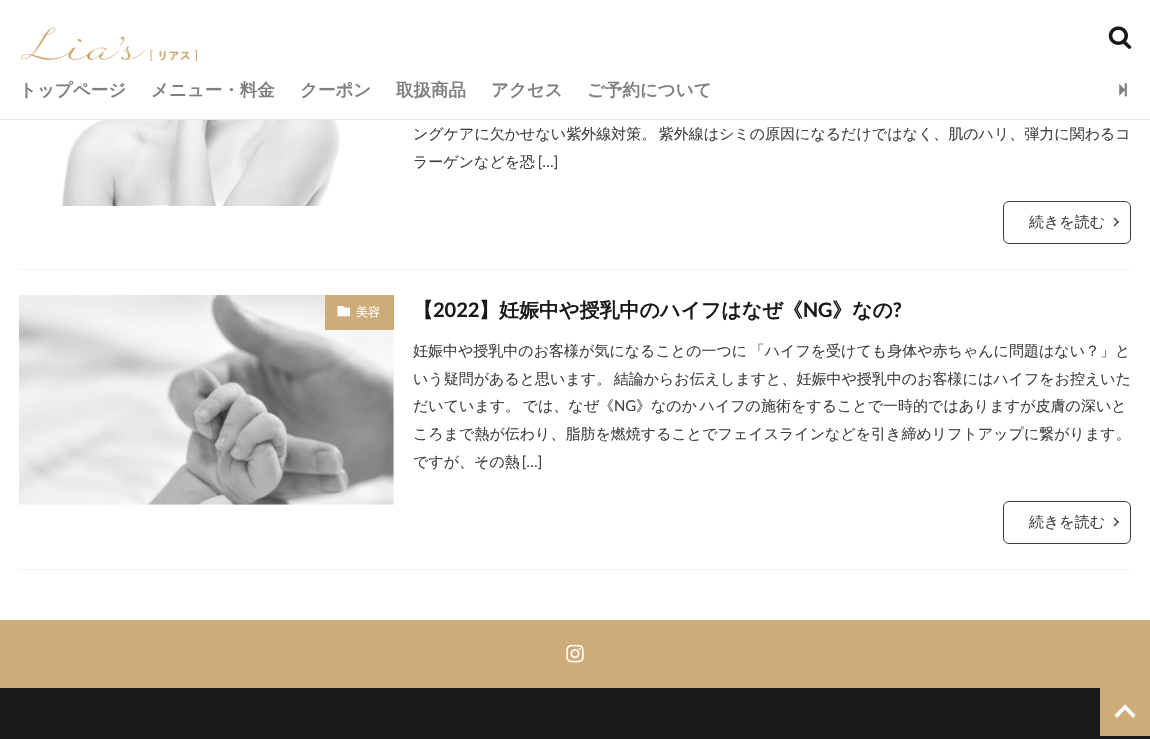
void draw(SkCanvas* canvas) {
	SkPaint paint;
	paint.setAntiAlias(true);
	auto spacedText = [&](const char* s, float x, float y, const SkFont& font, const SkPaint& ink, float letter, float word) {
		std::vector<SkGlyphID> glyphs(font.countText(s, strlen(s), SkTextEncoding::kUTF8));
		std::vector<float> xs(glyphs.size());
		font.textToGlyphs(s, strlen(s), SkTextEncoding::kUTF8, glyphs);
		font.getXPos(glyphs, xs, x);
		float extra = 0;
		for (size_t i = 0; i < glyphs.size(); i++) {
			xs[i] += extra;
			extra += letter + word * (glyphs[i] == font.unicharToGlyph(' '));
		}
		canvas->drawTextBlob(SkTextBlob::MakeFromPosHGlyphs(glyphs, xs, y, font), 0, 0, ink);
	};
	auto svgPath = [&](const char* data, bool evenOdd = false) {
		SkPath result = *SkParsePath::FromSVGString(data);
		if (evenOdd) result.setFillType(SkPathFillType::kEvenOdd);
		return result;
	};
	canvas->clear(0xffffffff);
	paint.setColor(0xffe6e6e6);
	canvas->drawRect(SkRect::MakeXYWH(0, 119, 1150, 1), paint);
	canvas->drawImageRect(SkImages::DeferredFromEncodedData(SkData::MakeFromFileName("img1.png")), SkRect::MakeXYWH(20, 27, 177, 34), SkSamplingOptions());
	canvas->drawImageRect(SkImages::DeferredFromEncodedData(SkData::MakeFromFileName("img2.png")), SkRect::MakeXYWH(1108, 26, 24, 23), SkSamplingOptions());
	SkFont f1(fontMgr->matchFamilyStyle("WenQuanYi Zen Hei", SkFontStyle::Bold()), 17.5);
	f1.setSubpixel(true);
	paint.setColor(0xff808080);
	canvas->drawString("トップページ", 19, 96, f1, paint);
	canvas->drawString("メニュー・料金", 151, 96, f1, paint);
	canvas->drawString("クーポン", 300, 96, f1, paint);
	canvas->drawString("取扱商品", 396, 96, f1, paint);
	canvas->drawString("アクセス", 491, 96, f1, paint);
	canvas->drawString("ご予約について", 587, 96, f1, paint);
	canvas->drawImageRect(SkImages::DeferredFromEncodedData(SkData::MakeFromFileName("img3.png")), SkRect::MakeXYWH(1119, 83, 8, 14), SkSamplingOptions());
	paint.setStroke(true);
	paint.setStrokeWidth(1.2);
	paint.setColor(0xffe6e6e6);
	paint.setPathEffect(SkDashPathEffect::Make({{1.25f, 1.25f}}, 0));
	canvas->drawPath(svgPath("M19 269.5H1131"), paint);
	paint.setPathEffect(nullptr);
	canvas->drawImageRect(SkImages::DeferredFromEncodedData(SkData::MakeFromFileName("img4.png")), SkRect::MakeXYWH(61, 120, 279, 86), SkSamplingOptions());
	SkFont f2(fontMgr->matchFamilyStyle("WenQuanYi Zen Hei", SkFontStyle(500, SkFontStyle::kNormal_Width, SkFontStyle::kUpright_Slant)), 15);
	f2.setSubpixel(true);
	paint.setStroke(false);
	paint.setColor(0xff404040);
	spacedText("ングケアに欠かせない紫外線対策。 紫外線はシミの原因になるだけではなく、肌のハリ、弾力に関わるコ", 413, 139, f2, paint, 0, -2);
	canvas->drawString("ラーゲンなどを恐", 413, 167, f2, paint);
	SkFont f3(fontMgr->matchFamilyStyle("Lato", SkFontStyle::Normal()), 15);
	f3.setSubpixel(true);
	canvas->drawString("[…]", 538, 167, f3, paint);
	paint.setStroke(true);
	paint.setStrokeWidth(1);
	paint.setColor(0xff3f3f3f);
	canvas->drawRoundRect(SkRect::MakeXYWH(1003.5, 201.5, 127, 42), 5.5, 5.5, paint);
	paint.setStroke(false);
	paint.setColor(0xff404040);
	canvas->drawString("続きを読む", 1029, 227, f2, paint);
	paint.setColor(0xff3f3f3f);
	canvas->drawPath(svgPath("M1114.5 217.5L1119 222L1118 223L1113.5 218.5Z"), paint);
	canvas->drawPath(svgPath("M1118 221L1119 222L1114.5 226.5L1113.5 225.5Z"), paint);
	paint.setStroke(true);
	paint.setStrokeWidth(1.2);
	paint.setColor(0xffe6e6e6);
	paint.setPathEffect(SkDashPathEffect::Make({{1.25f, 1.25f}}, 0));
	canvas->drawPath(svgPath("M19 569.5H1131"), paint);
	paint.setPathEffect(nullptr);
	canvas->drawImageRect(SkImages::DeferredFromEncodedData(SkData::MakeFromFileName("img5.png")), SkRect::MakeXYWH(18, 294, 376, 211), SkSamplingOptions());
	paint.setStroke(false);
	paint.setColor(0xffceac79);
	canvas->drawRect(SkRect::MakeXYWH(325, 295, 69, 35), paint);
	canvas->drawImageRect(SkImages::DeferredFromEncodedData(SkData::MakeFromFileName("img6.png")), SkRect::MakeXYWH(337, 306, 13, 11), SkSamplingOptions());
	SkFont f4(fontMgr->matchFamilyStyle("WenQuanYi Zen Hei", SkFontStyle(500, SkFontStyle::kNormal_Width, SkFontStyle::kUpright_Slant)), 12);
	f4.setSubpixel(true);
	paint.setColor(0xffffffff);
	canvas->drawString("美容", 356, 316, f4, paint);
	SkFont f5(fontMgr->matchFamilyStyle("WenQuanYi Zen Hei", SkFontStyle::Bold()), 20);
	f5.setSubpixel(true);
	paint.setColor(0xff191919);
	canvas->drawString("【", 413, 317, f5, paint);
	SkFont f6(fontMgr->matchFamilyStyle("Lato", SkFontStyle::Bold()), 20);
	f6.setSubpixel(true);
	canvas->drawString("2022", 433, 317, f6, paint);
	canvas->drawString("】妊娠中や授乳中のハイフはなぜ《", 479, 317, f5, paint);
	canvas->drawString("NG", 803, 317, f6, paint);
	canvas->drawString("》なの", 832, 317, f5, paint);
	canvas->drawString("?", 893, 317, f6, paint);
	paint.setColor(0xff404040);
	spacedText("妊娠中や授乳中のお客様が気になることの一つに 「ハイフを受けても身体や赤ちゃんに問題はない？」と", 413, 356, f2, paint, 0, -2);
	spacedText("いう疑問があると思います。 結論からお伝えしますと、妊娠中や授乳中のお客様にはハイフをお控えいた", 413, 384, f2, paint, 0, -2);
	spacedText("だいています。 では、なぜ《", 413, 411, f2, paint, 0, -2);
	canvas->drawString("NG", 614, 411, f3, paint);
	spacedText("》なのか ハイフの施術をすることで一時的ではありますが皮膚の深いと", 636, 411, f2, paint, 0, -2);
	canvas->drawString("ころまで熱が伝わり、脂肪を燃焼することでフェイスラインなどを引き締めリフトアップに繋がります。", 413, 439, f2, paint);
	canvas->drawString("ですが、その熱", 413, 467, f2, paint);
	canvas->drawString("[…]", 522, 467, f3, paint);
	paint.setStroke(true);
	paint.setStrokeWidth(1);
	paint.setColor(0xff3f3f3f);
	canvas->drawRoundRect(SkRect::MakeXYWH(1003.5, 501.5, 127, 42), 5.5, 5.5, paint);
	paint.setStroke(false);
	paint.setColor(0xff404040);
	canvas->drawString("続きを読む", 1029, 527, f2, paint);
	paint.setColor(0xff3f3f3f);
	canvas->drawPath(svgPath("M1114.5 517.5L1119 522L1118 523L1113.5 518.5Z"), paint);
	canvas->drawPath(svgPath("M1118 521L1119 522L1114.5 526.5L1113.5 525.5Z"), paint);
	paint.setColor(0xffceac79);
	canvas->drawRect(SkRect::MakeXYWH(0, 620, 1150, 68), paint);
	canvas->drawImageRect(SkImages::DeferredFromEncodedData(SkData::MakeFromFileName("img7.png")), SkRect::MakeXYWH(566, 644, 18, 19), SkSamplingOptions());
	paint.setColor(0xff191919);
	canvas->drawRect(SkRect::MakeXYWH(0, 688, 1150, 51), paint);
	paint.setColor(0xffceac79);
	canvas->drawRect(SkRect::MakeXYWH(1100, 688, 50, 48), paint);
	paint.setColor(0xffffffff);
	canvas->drawPath(svgPath("M1114.5 715L1125 704.5L1127.5 707L1117 718Z"), paint);
	canvas->drawPath(svgPath("M1122.5 707L1125 704.5L1135.5 715L1133 718Z"), paint);
}
